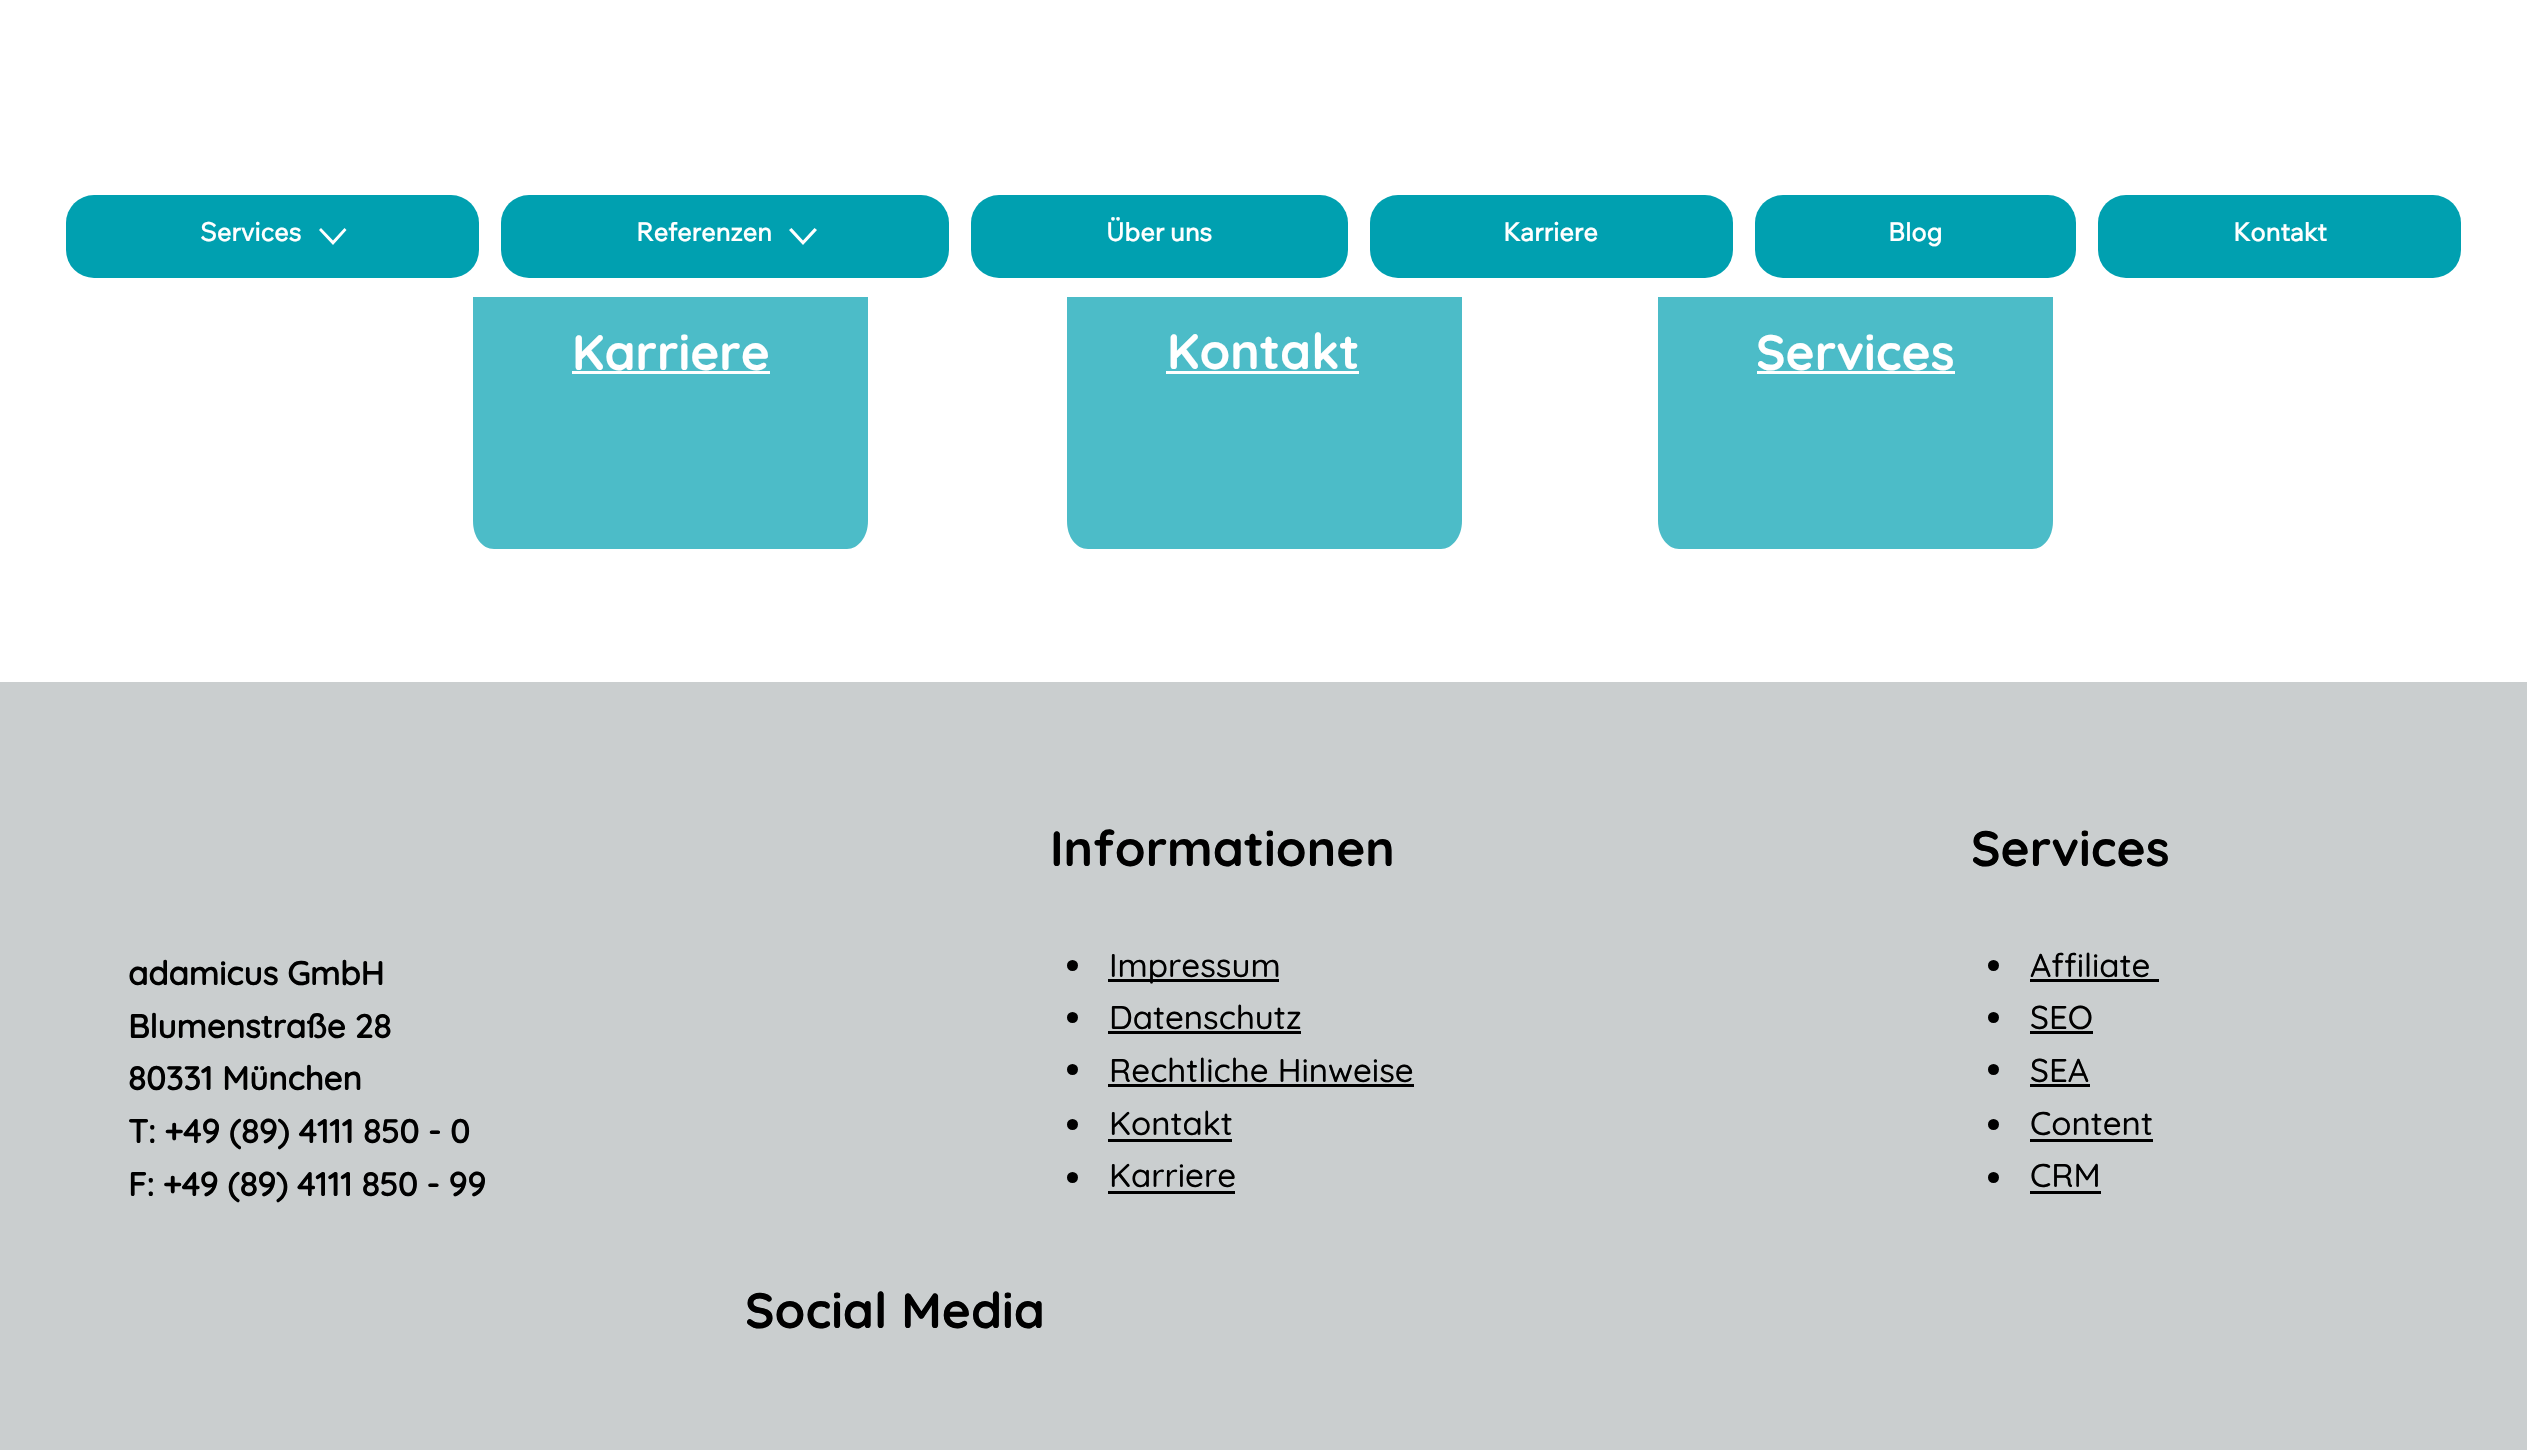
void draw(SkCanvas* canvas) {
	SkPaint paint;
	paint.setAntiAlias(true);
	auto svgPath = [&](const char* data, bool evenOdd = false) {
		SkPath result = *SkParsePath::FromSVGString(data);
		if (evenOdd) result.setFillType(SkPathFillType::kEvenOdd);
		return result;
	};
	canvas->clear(0xffffffff);
	paint.setColor(0xff4cbcc8);
	canvas->drawPath(svgPath("M847 549H494C482 549 473 537 473 521V182C473 166 482 154 494 154H847C858 154 868 166 868 182V521C868 537 858 549 847 549Z"), paint);
	canvas->drawPath(svgPath("M1441 549H1088C1076 549 1067 537 1067 521V182C1067 166 1076 154 1088 154H1441C1452 154 1462 166 1462 182V521C1462 537 1452 549 1441 549Z"), paint);
	canvas->drawPath(svgPath("M2032 549H1679C1668 549 1658 537 1658 521V182C1658 166 1668 154 1679 154H2032C2044 154 2053 166 2053 182V521C2053 537 2044 549 2032 549Z"), paint);
	paint.setColor(0xffffffff);
	canvas->drawRect(SkRect::MakeXYWH(473, 154, 1580, 143), paint);
	paint.setColor(0xff00a0b0);
	canvas->drawRoundRect(SkRect::MakeXYWH(66, 195, 413, 83), 28, 28, paint);
	SkFont f1(fontMgr->matchFamilyStyle("Wix Madefor Text", SkFontStyle::Bold()), 25.25);
	f1.setSubpixel(true);
	paint.setColor(0xffffffff);
	canvas->drawString("Services", 200, 241, f1, paint);
	canvas->drawPath(svgPath("M333 245L346.5 230L344.5 228L333 240.5L321 228L319 230Z"), paint);
	paint.setColor(0xff00a0b0);
	canvas->drawRoundRect(SkRect::MakeXYWH(501, 195, 448, 83), 28, 28, paint);
	paint.setColor(0xffffffff);
	canvas->drawString("Referenzen", 636, 241, f1, paint);
	canvas->drawPath(svgPath("M803 245L817 230L814.5 228L803 240.5L791.5 228L789 230Z"), paint);
	paint.setColor(0xff00a0b0);
	canvas->drawRoundRect(SkRect::MakeXYWH(971, 195, 377, 83), 28, 28, paint);
	paint.setColor(0xffffffff);
	canvas->drawString("Über uns", 1106, 241, f1, paint);
	paint.setColor(0xff00a0b0);
	canvas->drawRoundRect(SkRect::MakeXYWH(1370, 195, 363, 83), 28, 28, paint);
	paint.setColor(0xffffffff);
	canvas->drawString("Karriere", 1503, 241, f1, paint);
	paint.setColor(0xff00a0b0);
	canvas->drawRoundRect(SkRect::MakeXYWH(1755, 195, 321, 83), 28, 28, paint);
	paint.setColor(0xffffffff);
	canvas->drawString("Blog", 1888, 241, f1, paint);
	paint.setColor(0xff00a0b0);
	canvas->drawRoundRect(SkRect::MakeXYWH(2098, 195, 363, 83), 28, 28, paint);
	paint.setColor(0xffffffff);
	canvas->drawString("Kontakt", 2233, 241, f1, paint);
	SkFont f2(fontMgr->matchFamilyStyle("Quicksand", SkFontStyle::Bold()), 49.5);
	f2.setSubpixel(true);
	canvas->drawString("Karriere", 572, 370, f2, paint);
	canvas->drawRect(SkRect::MakeXYWH(572, 371, 198, 3), paint);
	canvas->drawString("Kontakt", 1167, 369, f2, paint);
	canvas->drawRect(SkRect::MakeXYWH(1166, 371, 193, 3), paint);
	canvas->drawString("Services", 1756, 370, f2, paint);
	canvas->drawRect(SkRect::MakeXYWH(1757, 371, 198, 3), paint);
	paint.setColor(0xffcacecf);
	canvas->drawRect(SkRect::MakeXYWH(0, 682, 2527, 768), paint);
	SkFont f3(fontMgr->matchFamilyStyle("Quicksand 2", SkFontStyle::Bold()), 33);
	f3.setSubpixel(true);
	paint.setColor(0xff000000);
	canvas->drawString("adamicus GmbH", 128, 985, f3, paint);
	canvas->drawString("Blumenstraße 28", 128, 1038, f3, paint);
	canvas->drawString("80331 München", 128, 1090, f3, paint);
	canvas->drawString("T: +49 (89) 4111 850 - 0", 128, 1143, f3, paint);
	canvas->drawString("F: +49 (89) 4111 850 - 99", 128, 1196, f3, paint);
	canvas->drawString("Informationen", 1050, 866, f2, paint);
	canvas->drawCircle(1072.5, 965.5, 5.5, paint);
	canvas->drawRect(SkRect::MakeXYWH(1108, 979, 171, 3), paint);
	SkFont f4(fontMgr->matchFamilyStyle("Quicksand", SkFontStyle(500, SkFontStyle::kNormal_Width, SkFontStyle::kUpright_Slant)), 33);
	f4.setSubpixel(true);
	canvas->drawString("Impressum", 1109, 977, f4, paint);
	canvas->drawCircle(1072.5, 1017.5, 5.5, paint);
	canvas->drawString("Datenschutz", 1109, 1029, f4, paint);
	canvas->drawRect(SkRect::MakeXYWH(1108, 1031, 193, 3), paint);
	canvas->drawCircle(1072.5, 1069.5, 5.5, paint);
	canvas->drawString("Rechtliche Hinweise", 1109, 1082, f4, paint);
	canvas->drawRect(SkRect::MakeXYWH(1108, 1084, 306, 3), paint);
	canvas->drawCircle(1072.5, 1124.5, 5.5, paint);
	canvas->drawString("Kontakt", 1109, 1135, f4, paint);
	canvas->drawRect(SkRect::MakeXYWH(1108, 1139, 124, 3), paint);
	canvas->drawCircle(1072.5, 1177.5, 5.5, paint);
	canvas->drawString("Karriere", 1109, 1187, f4, paint);
	canvas->drawRect(SkRect::MakeXYWH(1108, 1191, 127, 3), paint);
	canvas->drawString("Services", 1971, 866, f2, paint);
	canvas->drawCircle(1993.5, 965.5, 5.5, paint);
	canvas->drawString("Affiliate", 2030, 977, f4, paint);
	canvas->drawRect(SkRect::MakeXYWH(2030, 979, 129, 3), paint);
	canvas->drawCircle(1993.5, 1017.5, 5.5, paint);
	canvas->drawString("SEO", 2030, 1029, f4, paint);
	canvas->drawRect(SkRect::MakeXYWH(2030, 1031, 63, 3), paint);
	canvas->drawCircle(1993.5, 1069.5, 5.5, paint);
	canvas->drawString("SEA", 2030, 1082, f4, paint);
	canvas->drawRect(SkRect::MakeXYWH(2030, 1084, 60, 3), paint);
	canvas->drawCircle(1993.5, 1124.5, 5.5, paint);
	canvas->drawString("Content", 2030, 1135, f4, paint);
	canvas->drawRect(SkRect::MakeXYWH(2030, 1139, 123, 3), paint);
	canvas->drawCircle(1993.5, 1177.5, 5.5, paint);
	canvas->drawString("CRM", 2030, 1187, f4, paint);
	canvas->drawRect(SkRect::MakeXYWH(2030, 1191, 71, 3), paint);
	canvas->drawString("Social Media", 745, 1328, f2, paint);
}
